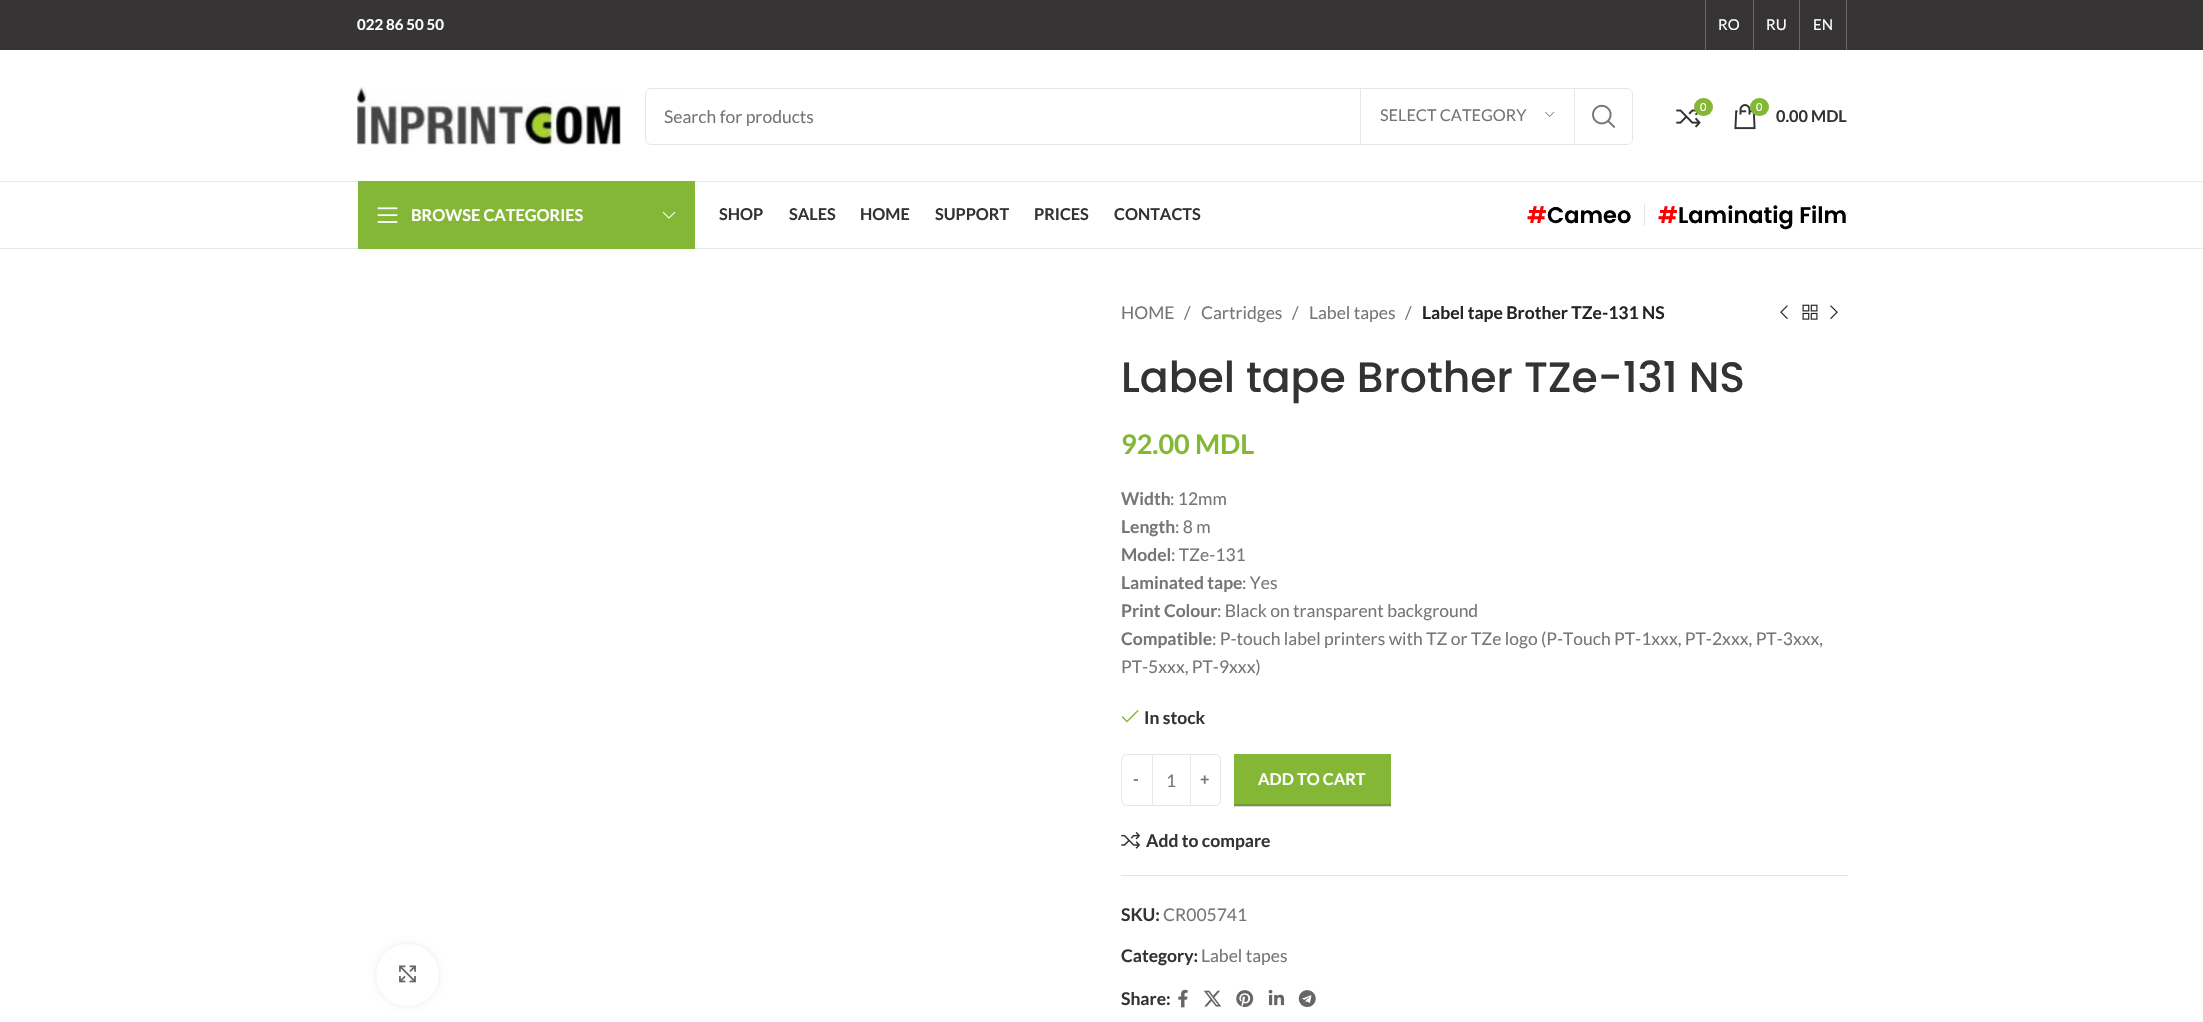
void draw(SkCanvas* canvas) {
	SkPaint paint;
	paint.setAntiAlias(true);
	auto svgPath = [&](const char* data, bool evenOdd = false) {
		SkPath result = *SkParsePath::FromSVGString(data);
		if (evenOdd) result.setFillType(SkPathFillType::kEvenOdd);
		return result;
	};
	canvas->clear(0xffffffff);
	paint.setColor(0xffd9d9d9);
	canvas->drawRect(SkRect::MakeXYWH(1234, 806, 157, 1), paint);
	paint.setColor(0xff363434);
	canvas->drawRect(SkRect::MakeXYWH(0, 0, 2203, 50), paint);
	SkFont f1(fontMgr->matchFamilyStyle("Lato", SkFontStyle::Bold()), 15);
	f1.setSubpixel(true);
	paint.setColor(0xffffffff);
	canvas->drawString("022 86 50 50", 357, 30, f1, paint);
	paint.setColor(0xff686767);
	canvas->drawRect(SkRect::MakeXYWH(1705, 0, 1, 50), paint);
	SkFont f2(fontMgr->matchFamilyStyle("Lato", SkFontStyle::Normal()), 15);
	f2.setSubpixel(true);
	paint.setColor(0xffffffff);
	canvas->drawString("RO", 1718, 30, f2, paint);
	paint.setColor(0xff686767);
	canvas->drawRect(SkRect::MakeXYWH(1753, 0, 1, 50), paint);
	paint.setColor(0xffffffff);
	canvas->drawString("RU", 1766, 30, f2, paint);
	paint.setColor(0xff686767);
	canvas->drawRect(SkRect::MakeXYWH(1799, 0, 1, 50), paint);
	paint.setColor(0xffffffff);
	canvas->drawString("EN", 1813, 30, f2, paint);
	paint.setColor(0xff686767);
	canvas->drawRect(SkRect::MakeXYWH(1846, 0, 1, 50), paint);
	paint.setColor(0xffe8e8e8);
	canvas->drawRect(SkRect::MakeXYWH(0, 181, 2203, 1), paint);
	canvas->drawImageRect(SkImages::DeferredFromEncodedData(SkData::MakeFromFileName("img1.png")), SkRect::MakeXYWH(357, 87, 264, 58), SkSamplingOptions());
	paint.setStroke(true);
	paint.setStrokeWidth(1);
	paint.setColor(0xffe6e6e6);
	canvas->drawRoundRect(SkRect::MakeXYWH(645.5, 88.5, 987, 56), 5.5, 5.5, paint);
	SkFont f3(fontMgr->matchFamilyStyle("Lato", SkFontStyle::Normal()), 17.5);
	f3.setSubpixel(true);
	paint.setStroke(false);
	paint.setColor(0xff767676);
	canvas->drawString("Search for products", 664, 123, f3, paint);
	paint.setColor(0xffe6e6e6);
	canvas->drawRect(SkRect::MakeXYWH(1574, 89, 1, 55), paint);
	canvas->drawRect(SkRect::MakeXYWH(1360, 89, 1, 55), paint);
	SkFont f4(fontMgr->matchFamilyStyle("Lato", SkFontStyle::Normal()), 16.25);
	f4.setSubpixel(true);
	paint.setColor(0xff767676);
	canvas->drawString("SELECT CATEGORY", 1380, 121, f4, paint);
	canvas->drawImageRect(SkImages::DeferredFromEncodedData(SkData::MakeFromFileName("img2.png")), SkRect::MakeXYWH(1545, 111, 10, 6), SkSamplingOptions());
	canvas->drawImageRect(SkImages::DeferredFromEncodedData(SkData::MakeFromFileName("img3.png")), SkRect::MakeXYWH(1592, 104, 24, 24), SkSamplingOptions());
	canvas->drawImageRect(SkImages::DeferredFromEncodedData(SkData::MakeFromFileName("img4.png")), SkRect::MakeXYWH(1676, 109, 25, 19), SkSamplingOptions());
	paint.setColor(0xff83b735);
	canvas->drawRoundRect(SkRect::MakeXYWH(1694, 98, 19, 18), 9, 9, paint);
	SkFont f5(fontMgr->matchFamilyStyle("Lato", SkFontStyle::Normal()), 11);
	f5.setSubpixel(true);
	paint.setColor(0xffffffff);
	canvas->drawString("0", 1700, 111, f5, paint);
	canvas->drawImageRect(SkImages::DeferredFromEncodedData(SkData::MakeFromFileName("img5.png")), SkRect::MakeXYWH(1734, 104, 22, 26), SkSamplingOptions());
	paint.setColor(0xff83b735);
	canvas->drawRoundRect(SkRect::MakeXYWH(1750, 98, 19, 18), 9, 9, paint);
	paint.setColor(0xffffffff);
	canvas->drawString("0", 1756, 111, f5, paint);
	SkFont f6(fontMgr->matchFamilyStyle("Lato", SkFontStyle::Bold()), 16.25);
	f6.setSubpixel(true);
	paint.setColor(0xff333333);
	canvas->drawString("0.00 MDL", 1776, 122, f6, paint);
	paint.setColor(0xffe8e8e8);
	canvas->drawRect(SkRect::MakeXYWH(0, 248, 2203, 1), paint);
	paint.setColor(0xff83b735);
	canvas->drawRect(SkRect::MakeXYWH(358, 181, 337, 68), paint);
	canvas->drawImageRect(SkImages::DeferredFromEncodedData(SkData::MakeFromFileName("img6.png")), SkRect::MakeXYWH(377, 207, 21, 16), SkSamplingOptions());
	paint.setColor(0xffffffff);
	canvas->drawString("BROWSE CATEGORIES", 411, 221, f6, paint);
	canvas->drawImageRect(SkImages::DeferredFromEncodedData(SkData::MakeFromFileName("img7.png")), SkRect::MakeXYWH(662, 211, 14, 8), SkSamplingOptions());
	paint.setColor(0xff333333);
	canvas->drawString("SHOP", 719, 220, f6, paint);
	canvas->drawString("SALES", 789, 220, f6, paint);
	canvas->drawString("HOME", 860, 220, f6, paint);
	canvas->drawString("SUPPORT", 935, 220, f6, paint);
	canvas->drawString("PRICES", 1034, 220, f6, paint);
	canvas->drawString("CONTACTS", 1114, 220, f6, paint);
	SkFont f7(fontMgr->matchFamilyStyle("Poppins", SkFontStyle(600, SkFontStyle::kNormal_Width, SkFontStyle::kUpright_Slant)), 22.5);
	f7.setSubpixel(true);
	paint.setColor(0xffff0000);
	canvas->drawString("#", 1527, 223, f7, paint);
	paint.setColor(0xff000000);
	canvas->drawString("Cameo", 1547, 223, f7, paint);
	paint.setColor(0xffe4e4e4);
	canvas->drawRect(SkRect::MakeXYWH(1644, 204, 1, 22), paint);
	paint.setColor(0xffff0000);
	canvas->drawString("#", 1658, 223, f7, paint);
	paint.setColor(0xff000000);
	canvas->drawString("Laminatig Film", 1678, 223, f7, paint);
	paint.setColor(0x14000000);
	paint.setMaskFilter(SkMaskFilter::MakeBlur(kNormal_SkBlurStyle, 3));
	canvas->drawRoundRect(SkRect::MakeXYWH(376, 944, 63, 62), 31, 31, paint);
	paint.setMaskFilter(nullptr);
	paint.setColor(0xffffffff);
	canvas->drawRoundRect(SkRect::MakeXYWH(376, 944, 63, 62), 31, 31, paint);
	canvas->drawImageRect(SkImages::DeferredFromEncodedData(SkData::MakeFromFileName("img8.png")), SkRect::MakeXYWH(399, 965, 17, 18), SkSamplingOptions());
	paint.setColor(0xff767676);
	canvas->drawString("HOME", 1121, 319, f3, paint);
	canvas->drawString("/", 1184, 319, f3, paint);
	canvas->drawString("Cartridges", 1201, 319, f3, paint);
	canvas->drawString("/", 1292, 319, f3, paint);
	canvas->drawString("Label tapes", 1309, 319, f3, paint);
	canvas->drawString("/", 1405, 319, f3, paint);
	SkFont f8(fontMgr->matchFamilyStyle("Lato", SkFontStyle::Bold()), 17.5);
	f8.setSubpixel(true);
	paint.setColor(0xff242424);
	canvas->drawString("Label tape Brother TZe-131 NS", 1422, 319, f8, paint);
	canvas->drawImageRect(SkImages::DeferredFromEncodedData(SkData::MakeFromFileName("img9.png")), SkRect::MakeXYWH(1780, 305, 8, 14), SkSamplingOptions());
	canvas->drawImageRect(SkImages::DeferredFromEncodedData(SkData::MakeFromFileName("img10.png")), SkRect::MakeXYWH(1802, 304, 16, 16), SkSamplingOptions());
	canvas->drawImageRect(SkImages::DeferredFromEncodedData(SkData::MakeFromFileName("img11.png")), SkRect::MakeXYWH(1830, 305, 8, 15), SkSamplingOptions());
	SkFont f9(fontMgr->matchFamilyStyle("Poppins", SkFontStyle(500, SkFontStyle::kNormal_Width, SkFontStyle::kUpright_Slant)), 42.5);
	f9.setSubpixel(true);
	paint.setColor(0xff333333);
	canvas->drawString("Label tape Brother TZe-131 NS", 1121, 392, f9, paint);
	SkFont f10(fontMgr->matchFamilyStyle("Lato", SkFontStyle::Bold()), 27);
	f10.setSubpixel(true);
	paint.setColor(0xff83b735);
	canvas->drawString("92.00 MDL", 1121, 454, f10, paint);
	paint.setColor(0xff767676);
	canvas->drawString("Width", 1121, 505, f8, paint);
	canvas->drawString(": 12mm", 1170, 505, f3, paint);
	canvas->drawString("Length", 1121, 533, f8, paint);
	canvas->drawString(": 8 m", 1175, 533, f3, paint);
	canvas->drawString("Model", 1121, 561, f8, paint);
	canvas->drawString(": TZe-131", 1171, 561, f3, paint);
	canvas->drawString("Laminated tape", 1121, 589, f8, paint);
	canvas->drawString(": Yes", 1242, 589, f3, paint);
	canvas->drawString("Print Colour", 1121, 617, f8, paint);
	canvas->drawString(": Black on transparent background", 1217, 617, f3, paint);
	canvas->drawString("Compatible", 1121, 645, f8, paint);
	canvas->drawString(": P-touch label printers with TZ or TZe logo (P-Touch PT-1xxx, PT-2xxx, PT-3xxx,", 1212, 645, f3, paint);
	canvas->drawString("PT-5xxx, PT-9xxx)", 1121, 673, f3, paint);
	paint.setColor(0xff83b735);
	canvas->drawPath(svgPath("M1138.5 711L1137.5 710L1127 720.5L1122.5 716L1121.5 717L1127 722.5Z"), paint);
	paint.setColor(0xff333333);
	canvas->drawString("In stock", 1144, 724, f8, paint);
	paint.setStroke(true);
	paint.setColor(0xffe6e6e6);
	canvas->drawPath(svgPath("M1127 754.5H1152.5V805.5H1127C1124 805.5 1121.5 803 1121.5 800V760C1121.5 757 1124 754.5 1127 754.5Z"), paint);
	paint.setStroke(false);
	paint.setColor(0xff767676);
	canvas->drawString("-", 1133, 785, f6, paint);
	paint.setColor(0xffe6e6e6);
	canvas->drawRect(SkRect::MakeXYWH(1153, 754, 37, 1), paint);
	canvas->drawRect(SkRect::MakeXYWH(1153, 805, 37, 1), paint);
	paint.setColor(0xff767676);
	canvas->drawString("1", 1166, 787, f3, paint);
	paint.setStroke(true);
	paint.setColor(0xffe6e6e6);
	canvas->drawPath(svgPath("M1190.5 754.5H1215C1218 754.5 1220.5 757 1220.5 760V800C1220.5 803 1218 805.5 1215 805.5H1190.5Z"), paint);
	paint.setStroke(false);
	paint.setColor(0xff767676);
	canvas->drawString("+", 1200, 785, f6, paint);
	paint.setColor(0xff83b735);
	canvas->drawRect(SkRect::MakeXYWH(1234, 754, 157, 50), paint);
	paint.setColor(0xff6f9c2d);
	canvas->drawRect(SkRect::MakeXYWH(1234, 804, 157, 2), paint);
	paint.setColor(0xffffffff);
	canvas->drawString("ADD TO CART", 1258, 785, f6, paint);
	canvas->drawImageRect(SkImages::DeferredFromEncodedData(SkData::MakeFromFileName("img12.png")), SkRect::MakeXYWH(1121, 831, 20, 18), SkSamplingOptions());
	paint.setColor(0xff333333);
	canvas->drawString("Add to compare", 1146, 847, f8, paint);
	paint.setColor(0xffe4e4e4);
	canvas->drawRect(SkRect::MakeXYWH(1121, 875, 727, 1), paint);
	paint.setColor(0xff333333);
	canvas->drawString("SKU:", 1121, 921, f8, paint);
	paint.setColor(0xff767676);
	canvas->drawString("CR005741", 1163, 921, f3, paint);
	paint.setColor(0xff333333);
	canvas->drawString("Category:", 1121, 962, f8, paint);
	paint.setColor(0xff767676);
	canvas->drawString("Label tapes", 1201, 962, f3, paint);
	paint.setColor(0xff333333);
	canvas->drawString("Share:", 1121, 1005, f8, paint);
	canvas->drawImageRect(SkImages::DeferredFromEncodedData(SkData::MakeFromFileName("img13.png")), SkRect::MakeXYWH(1178, 989, 10, 19), SkSamplingOptions());
	canvas->drawImageRect(SkImages::DeferredFromEncodedData(SkData::MakeFromFileName("img14.png")), SkRect::MakeXYWH(1203, 990, 19, 17), SkSamplingOptions());
	canvas->drawImageRect(SkImages::DeferredFromEncodedData(SkData::MakeFromFileName("img15.png")), SkRect::MakeXYWH(1236, 990, 18, 18), SkSamplingOptions());
	canvas->drawImageRect(SkImages::DeferredFromEncodedData(SkData::MakeFromFileName("img16.png")), SkRect::MakeXYWH(1268, 989, 17, 17), SkSamplingOptions());
	canvas->drawImageRect(SkImages::DeferredFromEncodedData(SkData::MakeFromFileName("img17.png")), SkRect::MakeXYWH(1298, 990, 18, 18), SkSamplingOptions());
}
